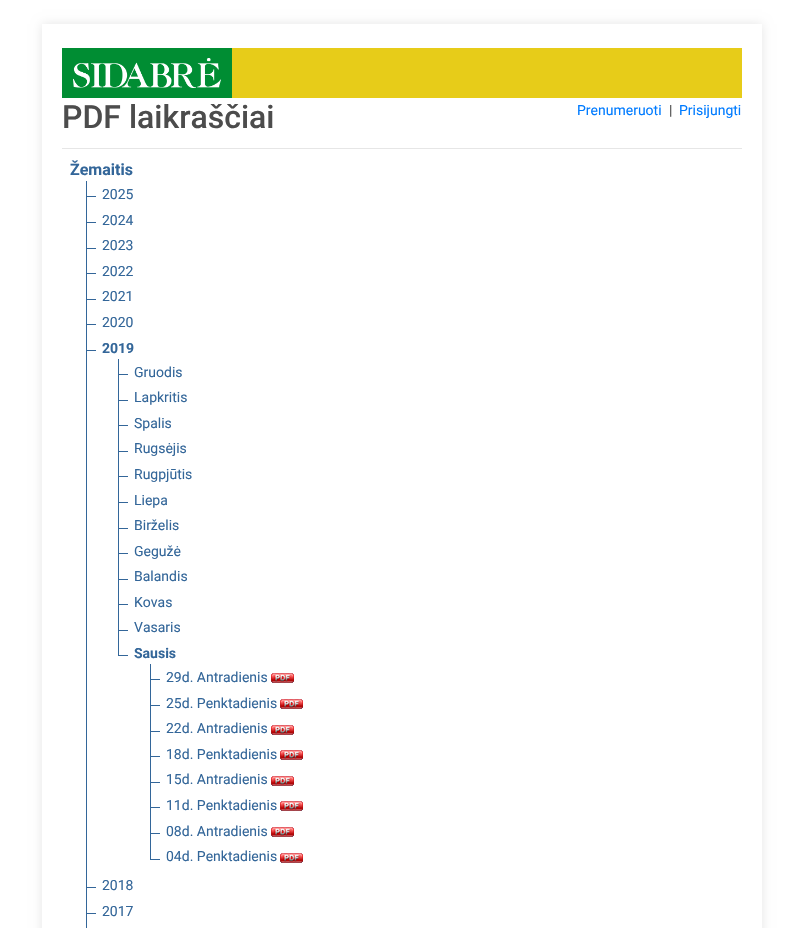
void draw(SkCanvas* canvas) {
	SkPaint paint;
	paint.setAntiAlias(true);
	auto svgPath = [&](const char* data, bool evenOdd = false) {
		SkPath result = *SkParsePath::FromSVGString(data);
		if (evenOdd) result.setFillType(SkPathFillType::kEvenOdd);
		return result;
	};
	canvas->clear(0xffffffff);
	canvas->save();
	canvas->clipPath(svgPath("M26 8H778V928H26ZM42 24H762V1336H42Z", true), true);
	paint.setColor(0x1a000000);
	paint.setMaskFilter(SkMaskFilter::MakeBlur(kNormal_SkBlurStyle, 5));
	canvas->drawRect(SkRect::MakeXYWH(42, 24, 720, 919), paint);
	paint.setMaskFilter(nullptr);
	canvas->restore();
	paint.setColor(0xffe7cc19);
	canvas->drawRect(SkRect::MakeXYWH(232, 48, 510, 50), paint);
	paint.setColor(0xff008d33);
	canvas->drawRect(SkRect::MakeXYWH(62, 48, 170, 50), paint);
	canvas->drawImageRect(SkImages::DeferredFromEncodedData(SkData::MakeFromFileName("img1.png")), SkRect::MakeXYWH(73, 58, 148, 30), SkSamplingOptions());
	SkFont f1(fontMgr->matchFamilyStyle("Roboto", SkFontStyle(500, SkFontStyle::kNormal_Width, SkFontStyle::kUpright_Slant)), 32);
	f1.setSubpixel(true);
	paint.setColor(0xff4c4c4c);
	canvas->drawString("PDF laikraščiai", 62, 128, f1, paint);
	SkFont f2(fontMgr->matchFamilyStyle("Roboto", SkFontStyle::Normal()), 14);
	f2.setSubpixel(true);
	paint.setColor(0xff007bff);
	canvas->drawString("Prenumeruoti", 577, 115, f2, paint);
	paint.setColor(0xff4c4c4c);
	canvas->drawString("|", 669, 115, f2, paint);
	paint.setColor(0xff007bff);
	canvas->drawString("Prisijungti", 679, 115, f2, paint);
	paint.setColor(0xffe6e6e6);
	canvas->drawRect(SkRect::MakeXYWH(62, 148, 680, 1), paint);
	SkFont f3(fontMgr->matchFamilyStyle("Roboto", SkFontStyle::Bold()), 16);
	f3.setSubpixel(true);
	paint.setColor(0xff336699);
	canvas->drawString("Žemaitis", 70, 175, f3, paint);
	canvas->drawRect(SkRect::MakeXYWH(86, 181, 1, 747), paint);
	canvas->drawRect(SkRect::MakeXYWH(86, 196, 10, 1), paint);
	canvas->drawString("2025", 102, 199, f2, paint);
	canvas->drawRect(SkRect::MakeXYWH(86, 222, 10, 1), paint);
	canvas->drawString("2024", 102, 225, f2, paint);
	canvas->drawRect(SkRect::MakeXYWH(86, 248, 10, 1), paint);
	canvas->drawString("2023", 102, 250, f2, paint);
	canvas->drawRect(SkRect::MakeXYWH(86, 273, 10, 1), paint);
	canvas->drawString("2022", 102, 276, f2, paint);
	canvas->drawRect(SkRect::MakeXYWH(86, 299, 10, 1), paint);
	canvas->drawString("2021", 102, 301, f2, paint);
	canvas->drawRect(SkRect::MakeXYWH(86, 324, 10, 1), paint);
	canvas->drawString("2020", 102, 327, f2, paint);
	canvas->drawRect(SkRect::MakeXYWH(86, 350, 10, 1), paint);
	SkFont f4(fontMgr->matchFamilyStyle("Roboto", SkFontStyle::Bold()), 14);
	f4.setSubpixel(true);
	canvas->drawString("2019", 102, 353, f4, paint);
	canvas->drawRect(SkRect::MakeXYWH(118, 359, 1, 296), paint);
	canvas->drawRect(SkRect::MakeXYWH(118, 374, 10, 1), paint);
	canvas->drawString("Gruodis", 134, 377, f2, paint);
	canvas->drawRect(SkRect::MakeXYWH(118, 400, 10, 1), paint);
	canvas->drawString("Lapkritis", 134, 402, f2, paint);
	canvas->drawRect(SkRect::MakeXYWH(118, 425, 10, 1), paint);
	canvas->drawString("Spalis", 134, 428, f2, paint);
	canvas->drawRect(SkRect::MakeXYWH(118, 451, 10, 1), paint);
	canvas->drawString("Rugsėjis", 134, 453, f2, paint);
	canvas->drawRect(SkRect::MakeXYWH(118, 476, 10, 1), paint);
	canvas->drawString("Rugpjūtis", 134, 479, f2, paint);
	canvas->drawRect(SkRect::MakeXYWH(118, 502, 10, 1), paint);
	canvas->drawString("Liepa", 134, 505, f2, paint);
	canvas->drawRect(SkRect::MakeXYWH(118, 528, 10, 1), paint);
	canvas->drawString("Birželis", 134, 530, f2, paint);
	canvas->drawRect(SkRect::MakeXYWH(118, 553, 10, 1), paint);
	canvas->drawString("Gegužė", 134, 556, f2, paint);
	canvas->drawRect(SkRect::MakeXYWH(118, 579, 10, 1), paint);
	canvas->drawString("Balandis", 134, 581, f2, paint);
	canvas->drawRect(SkRect::MakeXYWH(118, 604, 10, 1), paint);
	canvas->drawString("Kovas", 134, 607, f2, paint);
	canvas->drawRect(SkRect::MakeXYWH(118, 630, 10, 1), paint);
	canvas->drawString("Vasaris", 134, 632, f2, paint);
	canvas->drawRect(SkRect::MakeXYWH(118, 655, 10, 1), paint);
	canvas->drawString("Sausis", 134, 658, f4, paint);
	canvas->drawRect(SkRect::MakeXYWH(150, 664, 1, 195), paint);
	canvas->drawRect(SkRect::MakeXYWH(150, 679, 10, 1), paint);
	canvas->drawString("29d. Antradienis", 166, 682, f2, paint);
	canvas->drawImageRect(SkImages::DeferredFromEncodedData(SkData::MakeFromFileName("img2.png")), SkRect::MakeXYWH(271, 673, 23, 10), SkSamplingOptions());
	canvas->drawRect(SkRect::MakeXYWH(150, 705, 10, 1), paint);
	canvas->drawString("25d. Penktadienis", 166, 708, f2, paint);
	canvas->drawImageRect(SkImages::DeferredFromEncodedData(SkData::MakeFromFileName("img2.png")), SkRect::MakeXYWH(280, 699, 23, 10), SkSamplingOptions());
	canvas->drawRect(SkRect::MakeXYWH(150, 731, 10, 1), paint);
	canvas->drawString("22d. Antradienis", 166, 733, f2, paint);
	canvas->drawImageRect(SkImages::DeferredFromEncodedData(SkData::MakeFromFileName("img2.png")), SkRect::MakeXYWH(271, 725, 23, 10), SkSamplingOptions());
	canvas->drawRect(SkRect::MakeXYWH(150, 756, 10, 1), paint);
	canvas->drawString("18d. Penktadienis", 166, 759, f2, paint);
	canvas->drawImageRect(SkImages::DeferredFromEncodedData(SkData::MakeFromFileName("img2.png")), SkRect::MakeXYWH(280, 750, 23, 10), SkSamplingOptions());
	canvas->drawRect(SkRect::MakeXYWH(150, 782, 10, 1), paint);
	canvas->drawString("15d. Antradienis", 166, 784, f2, paint);
	canvas->drawImageRect(SkImages::DeferredFromEncodedData(SkData::MakeFromFileName("img2.png")), SkRect::MakeXYWH(271, 776, 23, 10), SkSamplingOptions());
	canvas->drawRect(SkRect::MakeXYWH(150, 807, 10, 1), paint);
	canvas->drawString("11d. Penktadienis", 166, 810, f2, paint);
	canvas->drawImageRect(SkImages::DeferredFromEncodedData(SkData::MakeFromFileName("img2.png")), SkRect::MakeXYWH(280, 801, 23, 10), SkSamplingOptions());
	canvas->drawRect(SkRect::MakeXYWH(150, 833, 10, 1), paint);
	canvas->drawString("08d. Antradienis", 166, 836, f2, paint);
	canvas->drawImageRect(SkImages::DeferredFromEncodedData(SkData::MakeFromFileName("img2.png")), SkRect::MakeXYWH(271, 827, 23, 10), SkSamplingOptions());
	canvas->drawRect(SkRect::MakeXYWH(150, 859, 10, 1), paint);
	canvas->drawString("04d. Penktadienis", 166, 861, f2, paint);
	canvas->drawImageRect(SkImages::DeferredFromEncodedData(SkData::MakeFromFileName("img2.png")), SkRect::MakeXYWH(280, 853, 23, 10), SkSamplingOptions());
	canvas->drawRect(SkRect::MakeXYWH(86, 887, 10, 1), paint);
	canvas->drawString("2018", 102, 890, f2, paint);
	canvas->drawRect(SkRect::MakeXYWH(86, 913, 10, 1), paint);
	canvas->drawString("2017", 102, 916, f2, paint);
}
